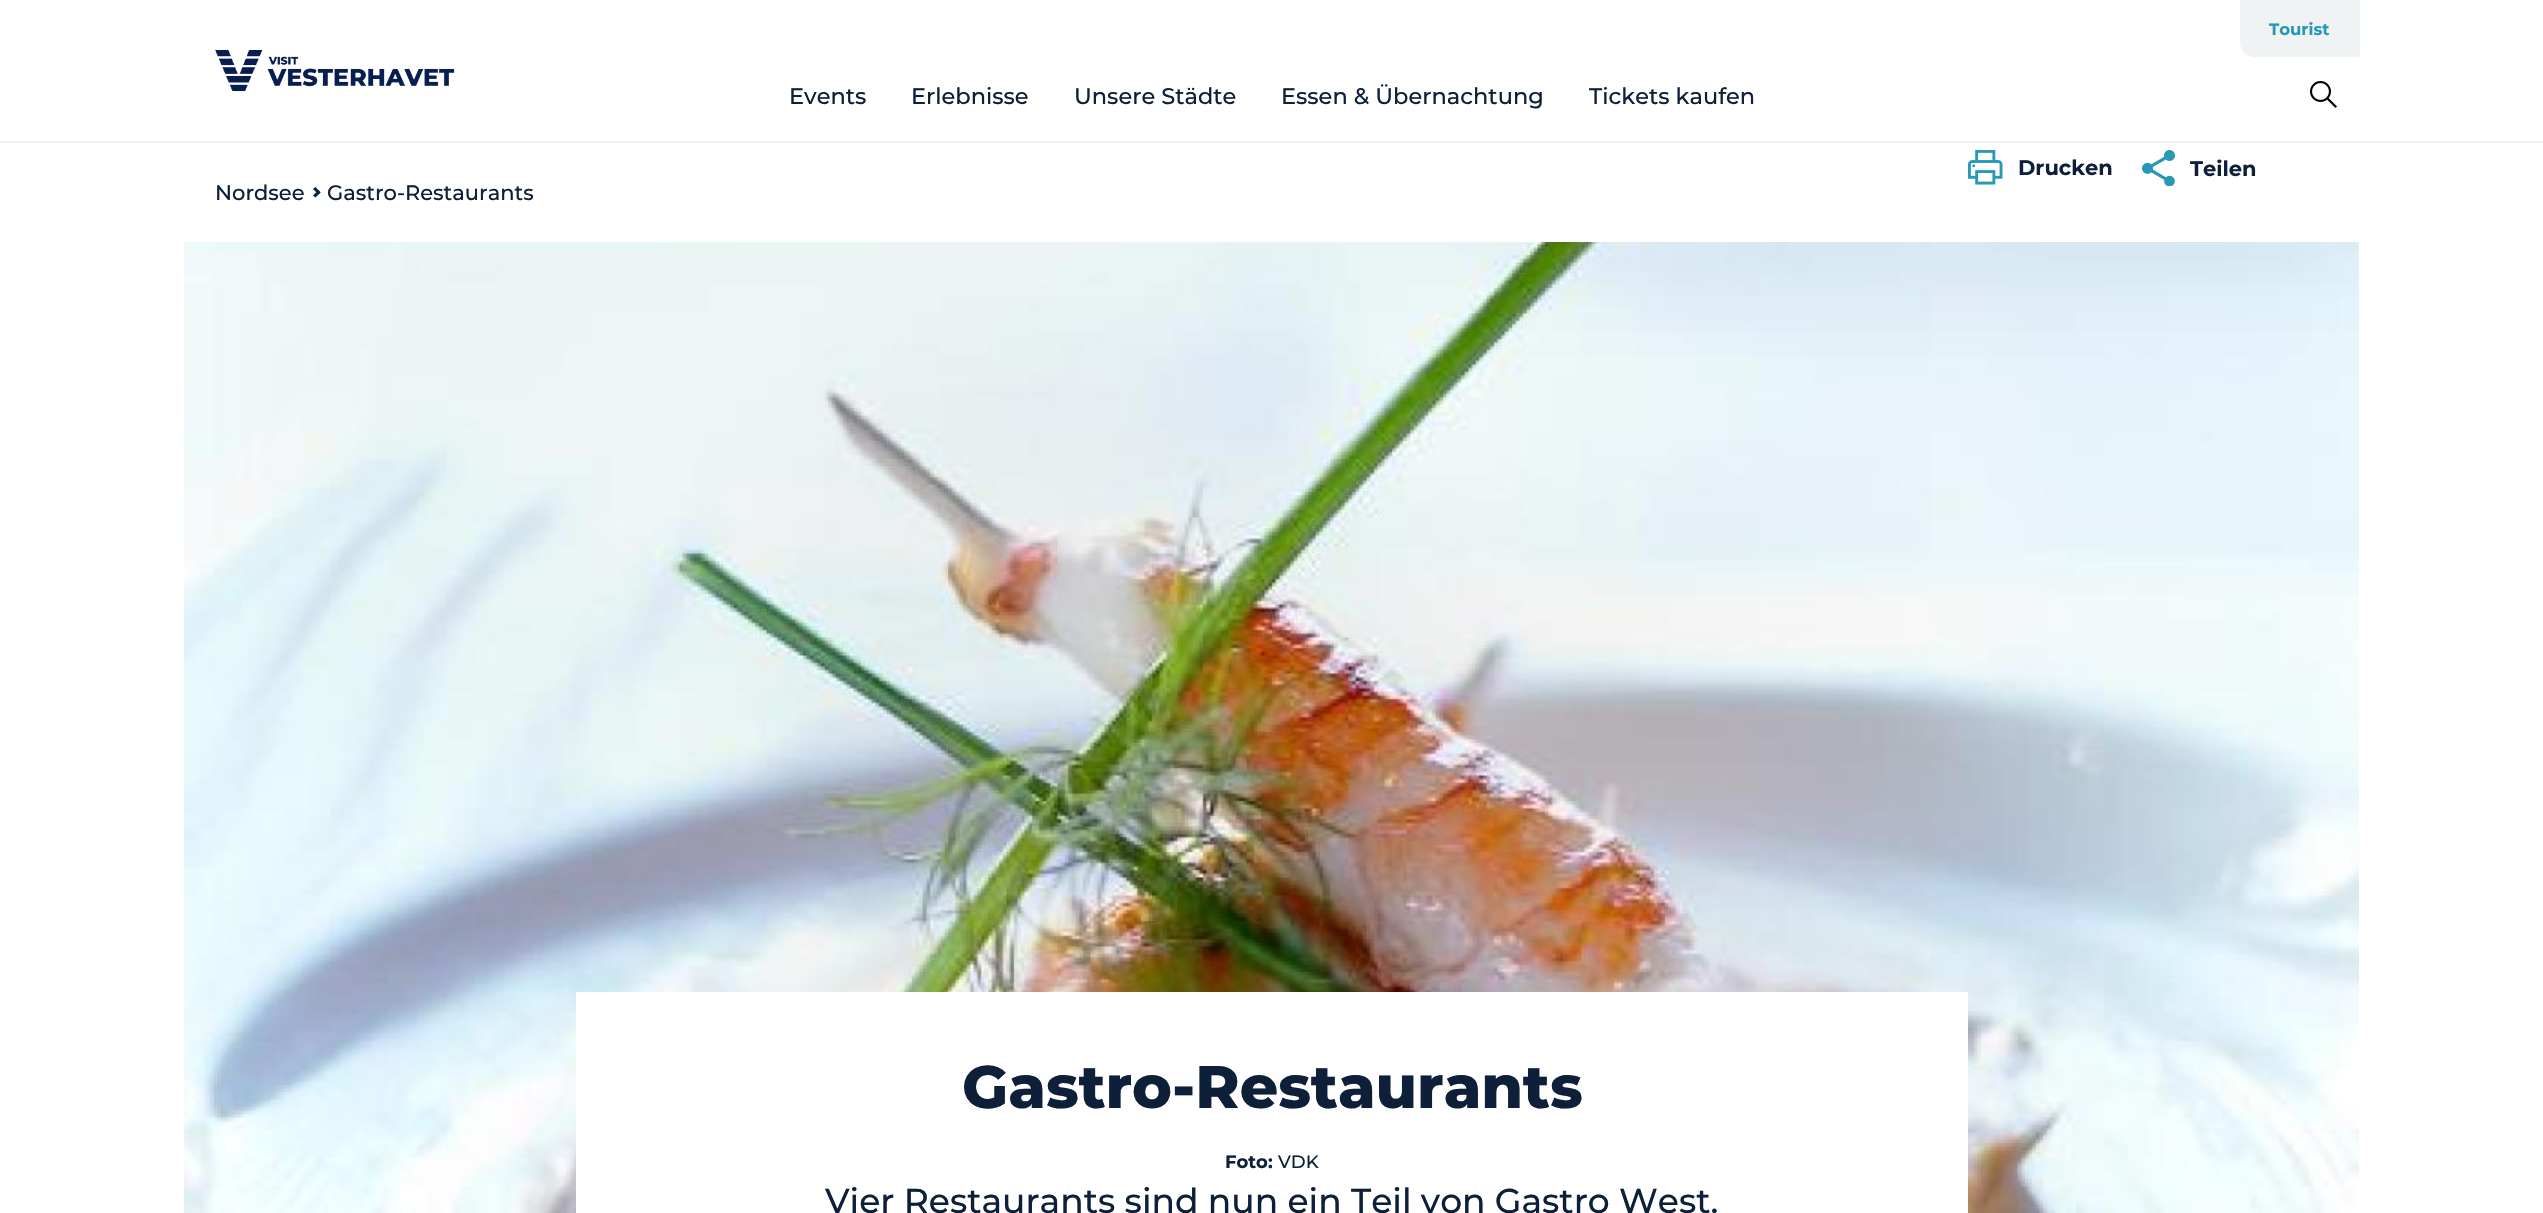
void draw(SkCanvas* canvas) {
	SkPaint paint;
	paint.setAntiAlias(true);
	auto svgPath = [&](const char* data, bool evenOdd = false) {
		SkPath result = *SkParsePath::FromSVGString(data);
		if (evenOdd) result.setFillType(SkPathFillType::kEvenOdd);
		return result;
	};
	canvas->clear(0xffffffff);
	paint.setColor(0xfff0f1f3);
	canvas->drawRect(SkRect::MakeXYWH(0, 141, 2543, 2), paint);
	canvas->drawImageRect(SkImages::DeferredFromEncodedData(SkData::MakeFromFileName("img1.png")), SkRect::MakeXYWH(215, 50, 240, 42), SkSamplingOptions());
	paint.setColor(0xffeff3f4);
	canvas->drawPath(svgPath("M2240 0H2360V57H2255C2246.5 57 2240 50.5 2240 42Z"), paint);
	SkFont f1(fontMgr->matchFamilyStyle("Montserrat", SkFontStyle::Bold()), 16.5);
	f1.setSubpixel(true);
	paint.setColor(0xff2898b7);
	canvas->drawString("Tourist", 2269, 35, f1, paint);
	SkFont f2(fontMgr->matchFamilyStyle("Montserrat", SkFontStyle(500, SkFontStyle::kNormal_Width, SkFontStyle::kUpright_Slant)), 22.5);
	f2.setSubpixel(true);
	paint.setColor(0xff0d1f39);
	canvas->drawString("Events", 789, 104, f2, paint);
	canvas->drawString("Erlebnisse", 911, 104, f2, paint);
	canvas->drawString("Unsere Städte", 1074, 104, f2, paint);
	canvas->drawString("Essen & Übernachtung", 1281, 104, f2, paint);
	canvas->drawString("Tickets kaufen", 1589, 104, f2, paint);
	canvas->drawImageRect(SkImages::DeferredFromEncodedData(SkData::MakeFromFileName("img2.png")), SkRect::MakeXYWH(2310, 81, 27, 27), SkSamplingOptions());
	SkFont f3(fontMgr->matchFamilyStyle("Montserrat", SkFontStyle(500, SkFontStyle::kNormal_Width, SkFontStyle::kUpright_Slant)), 21);
	f3.setSubpixel(true);
	canvas->drawString("Nordsee", 215, 200, f3, paint);
	paint.setColor(0xff07203b);
	canvas->drawPath(svgPath("M315.5 187L320.5 192.5L318.5 194.5L313 189Z"), paint);
	canvas->drawPath(svgPath("M318.5 190L320.5 192.5L315.5 197.5L313 195.5Z"), paint);
	paint.setColor(0xff0d1f39);
	canvas->drawString("Gastro-Restaurants", 327, 200, f3, paint);
	canvas->drawImageRect(SkImages::DeferredFromEncodedData(SkData::MakeFromFileName("img3.png")), SkRect::MakeXYWH(1968, 150, 35, 35), SkSamplingOptions());
	SkFont f4(fontMgr->matchFamilyStyle("Montserrat", SkFontStyle::Bold()), 21);
	f4.setSubpixel(true);
	canvas->drawString("Drucken", 2018, 175, f4, paint);
	canvas->drawImageRect(SkImages::DeferredFromEncodedData(SkData::MakeFromFileName("img4.png")), SkRect::MakeXYWH(2142, 150, 33, 36), SkSamplingOptions());
	canvas->drawString("Teilen", 2190, 176, f4, paint);
	canvas->drawImageRect(SkImages::DeferredFromEncodedData(SkData::MakeFromFileName("img5.png")), SkRect::MakeXYWH(184, 242, 2175, 971), SkSamplingOptions());
	paint.setColor(0xffffffff);
	canvas->drawRect(SkRect::MakeXYWH(576, 992, 1392, 221), paint);
	SkFont f5(fontMgr->matchFamilyStyle("Montserrat", SkFontStyle(800, SkFontStyle::kNormal_Width, SkFontStyle::kUpright_Slant)), 60);
	f5.setSubpixel(true);
	paint.setColor(0xff0d1f39);
	canvas->drawString("Gastro-Restaurants", 962, 1108, f5, paint);
	SkFont f6(fontMgr->matchFamilyStyle("Montserrat", SkFontStyle::Bold()), 18);
	f6.setSubpixel(true);
	canvas->drawString("Foto:", 1225, 1168, f6, paint);
	SkFont f7(fontMgr->matchFamilyStyle("Montserrat", SkFontStyle(500, SkFontStyle::kNormal_Width, SkFontStyle::kUpright_Slant)), 18);
	f7.setSubpixel(true);
	canvas->drawString("VDK", 1278, 1168, f7, paint);
	SkFont f8(fontMgr->matchFamilyStyle("Montserrat", SkFontStyle(500, SkFontStyle::kNormal_Width, SkFontStyle::kUpright_Slant)), 34.5);
	f8.setSubpixel(true);
	canvas->drawString("Vier Restaurants sind nun ein Teil von Gastro West.", 825, 1213, f8, paint);
}
